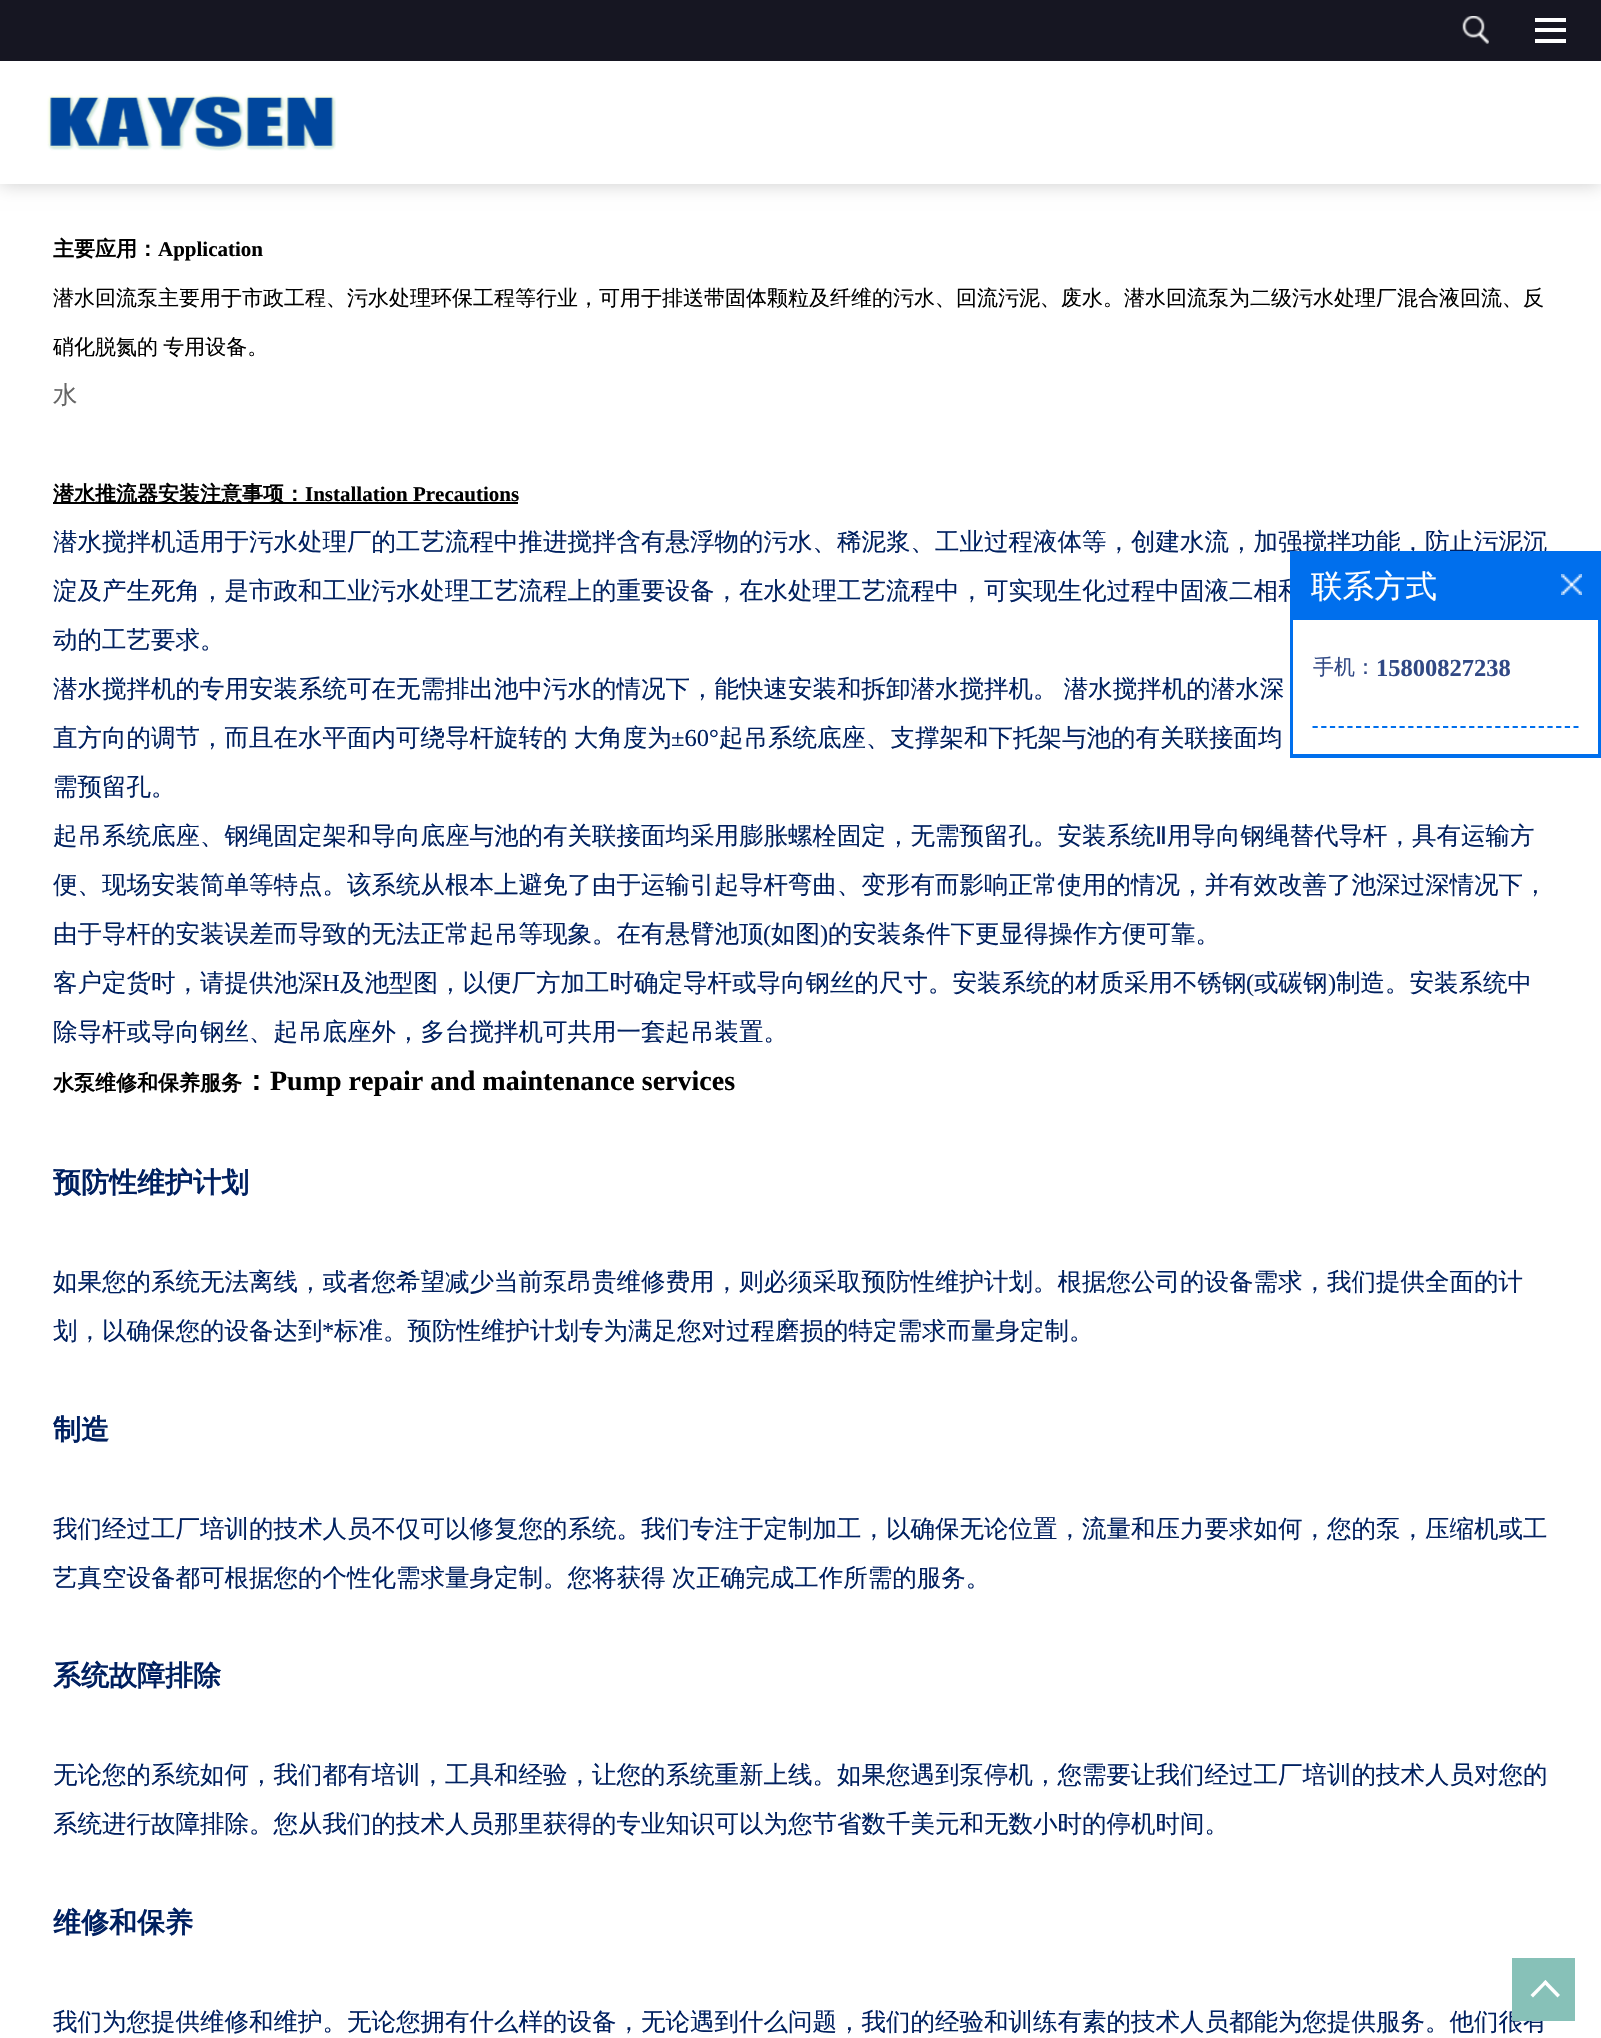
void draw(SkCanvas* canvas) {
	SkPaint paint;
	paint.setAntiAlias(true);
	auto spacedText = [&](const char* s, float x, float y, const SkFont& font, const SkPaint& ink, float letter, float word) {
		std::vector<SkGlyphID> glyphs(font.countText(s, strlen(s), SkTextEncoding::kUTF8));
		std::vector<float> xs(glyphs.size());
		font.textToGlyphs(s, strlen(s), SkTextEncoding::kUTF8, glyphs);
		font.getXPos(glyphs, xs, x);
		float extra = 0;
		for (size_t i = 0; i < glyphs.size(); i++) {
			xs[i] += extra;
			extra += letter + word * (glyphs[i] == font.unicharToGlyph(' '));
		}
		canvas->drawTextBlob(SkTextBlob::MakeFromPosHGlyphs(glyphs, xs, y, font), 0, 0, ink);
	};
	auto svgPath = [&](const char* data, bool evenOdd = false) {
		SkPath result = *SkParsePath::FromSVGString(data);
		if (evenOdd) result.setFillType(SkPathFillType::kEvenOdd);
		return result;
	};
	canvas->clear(0xffffffff);
	paint.setColor(0x33000000);
	paint.setMaskFilter(SkMaskFilter::MakeBlur(kNormal_SkBlurStyle, 9));
	canvas->drawRect(SkRect::MakeXYWH(0, 0, 1601, 184), paint);
	paint.setMaskFilter(nullptr);
	paint.setColor(0xffffffff);
	canvas->drawRect(SkRect::MakeXYWH(0, 61, 1601, 123), paint);
	paint.setColor(0xff161622);
	canvas->drawRect(SkRect::MakeXYWH(0, 0, 1601, 61), paint);
	canvas->drawImageRect(SkImages::DeferredFromEncodedData(SkData::MakeFromFileName("img1.png")), SkRect::MakeXYWH(1462, 16, 27, 28), SkSamplingOptions());
	paint.setColor(0xffffffff);
	canvas->drawRect(SkRect::MakeXYWH(1535, 18, 31, 4), paint);
	canvas->drawRect(SkRect::MakeXYWH(1535, 28, 31, 4), paint);
	canvas->drawRect(SkRect::MakeXYWH(1535, 39, 31, 4), paint);
	canvas->drawImageRect(SkImages::DeferredFromEncodedData(SkData::MakeFromFileName("img2.png")), SkRect::MakeXYWH(47, 94, 289, 57), SkSamplingOptions());
	SkFont f1(fontMgr->matchFamilyStyle("WenQuanYi Zen Hei", SkFontStyle::Bold()), 21);
	f1.setSubpixel(true);
	paint.setColor(0xff000000);
	canvas->drawString("主要应用：", 53, 256, f1, paint);
	SkFont f2(fontMgr->matchFamilyStyle("Liberation Serif", SkFontStyle::Bold()), 21);
	f2.setSubpixel(true);
	canvas->drawString("Application", 158, 256, f2, paint);
	SkFont f3(fontMgr->matchFamilyStyle("WenQuanYi Zen Hei", SkFontStyle(500, SkFontStyle::kNormal_Width, SkFontStyle::kUpright_Slant)), 21);
	f3.setSubpixel(true);
	canvas->drawString("潜水回流泵主要用于市政工程、污水处理环保工程等行业，可用于排送带固体颗粒及纤维的污水、回流污泥、废水。潜水回流泵为二级污水处理厂混合液回流、反", 53, 305, f3, paint);
	spacedText("硝化脱氮的 专用设备。", 53, 354, f3, paint, 0, -1);
	SkFont f4(fontMgr->matchFamilyStyle("WenQuanYi Zen Hei", SkFontStyle(500, SkFontStyle::kNormal_Width, SkFontStyle::kUpright_Slant)), 24.5);
	f4.setSubpixel(true);
	paint.setColor(0xff666666);
	canvas->drawString("水", 53, 403, f4, paint);
	paint.setColor(0xff000000);
	canvas->drawRect(SkRect::MakeXYWH(53, 502, 465, 2), paint);
	canvas->drawString("潜水推流器安装注意事项：", 53, 501, f1, paint);
	canvas->drawString("Installation Precautions", 305, 501, f2, paint);
	paint.setColor(0xff002060);
	canvas->drawString("潜水搅拌机适用于污水处理厂的工艺流程中推进搅拌含有悬浮物的污水、稀泥浆、工业过程液体等，创建水流，加强搅拌功能，防止污泥沉", 53, 550, f4, paint);
	canvas->drawString("淀及产生死角，是市政和工业污水处理工艺流程上的重要设备，在水处理工艺流程中，可实现生化过程中固液二相和", 53, 599, f4, paint);
	canvas->drawString("动的工艺要求。", 53, 648, f4, paint);
	spacedText("潜水搅拌机的专用安装系统可在无需排出池中污水的情况下，能快速安装和拆卸潜水搅拌机。 潜水搅拌机的潜水深", 53, 697, f4, paint, 0, -1);
	spacedText("直方向的调节，而且在水平面内可绕导杆旋转的 大角度为", 53, 746, f4, paint, 0, -1);
	SkFont f5(fontMgr->matchFamilyStyle("Liberation Serif", SkFontStyle::Normal()), 24.5);
	f5.setSubpixel(true);
	canvas->drawString("±60°", 671, 746, f5, paint);
	canvas->drawString("起吊系统底座、支撑架和下托架与池的有关联接面均", 719, 746, f4, paint);
	canvas->drawString("需预留孔。", 53, 795, f4, paint);
	canvas->drawString("起吊系统底座、钢绳固定架和导向底座与池的有关联接面均采用膨胀螺栓固定，无需预留孔。安装系统", 53, 844, f4, paint);
	SkFont f6(fontMgr->matchFamilyStyle("DejaVu Sans", SkFontStyle::Normal()), 24.5);
	f6.setSubpixel(true);
	canvas->drawString("Ⅱ", 1155, 844, f6, paint);
	canvas->drawString("用导向钢绳替代导杆，具有运输方", 1167, 844, f4, paint);
	canvas->drawString("便、现场安装简单等特点。该系统从根本上避免了由于运输引起导杆弯曲、变形有而影响正常使用的情况，并有效改善了池深过深情况下，", 53, 893, f4, paint);
	canvas->drawString("由于导杆的安装误差而导致的无法正常起吊等现象。在有悬臂池顶", 53, 942, f4, paint);
	canvas->drawString("(", 763, 942, f5, paint);
	canvas->drawString("如图", 771, 942, f4, paint);
	canvas->drawString(")", 820, 942, f5, paint);
	canvas->drawString("的安装条件下更显得操作方便可靠。", 828, 942, f4, paint);
	canvas->drawString("客户定货时，请提供池深", 53, 991, f4, paint);
	canvas->drawString("H", 322, 991, f5, paint);
	canvas->drawString("及池型图，以便厂方加工时确定导杆或导向钢丝的尺寸。安装系统的材质采用不锈钢", 340, 991, f4, paint);
	canvas->drawString("(", 1246, 991, f5, paint);
	canvas->drawString("或碳钢", 1254, 991, f4, paint);
	canvas->drawString(")", 1328, 991, f5, paint);
	canvas->drawString("制造。安装系统中", 1336, 991, f4, paint);
	canvas->drawString("除导杆或导向钢丝、起吊底座外，多台搅拌机可共用一套起吊装置。", 53, 1040, f4, paint);
	paint.setColor(0xff000000);
	canvas->drawString("水泵维修和保养服务", 53, 1090, f1, paint);
	SkFont f7(fontMgr->matchFamilyStyle("WenQuanYi Zen Hei", SkFontStyle::Bold()), 28);
	f7.setSubpixel(true);
	canvas->drawString("：", 242, 1090, f7, paint);
	SkFont f8(fontMgr->matchFamilyStyle("Liberation Serif", SkFontStyle::Bold()), 28);
	f8.setSubpixel(true);
	canvas->drawString("Pump repair and maintenance services", 270, 1090, f8, paint);
	paint.setColor(0xff002060);
	canvas->drawString("预防性维护计划", 53, 1192, f7, paint);
	canvas->drawString("如果您的系统无法离线，或者您希望减少当前泵昂贵维修费用，则必须采取预防性维护计划。根据您公司的设备需求，我们提供全面的计", 53, 1290, f4, paint);
	canvas->drawString("划，以确保您的设备达到", 53, 1339, f4, paint);
	canvas->drawString("*", 322, 1339, f5, paint);
	canvas->drawString("标准。预防性维护计划专为满足您对过程磨损的特定需求而量身定制。", 334, 1339, f4, paint);
	canvas->drawString("制造", 53, 1439, f7, paint);
	canvas->drawString("我们经过工厂培训的技术人员不仅可以修复您的系统。我们专注于定制加工，以确保无论位置，流量和压力要求如何，您的泵，压缩机或工", 53, 1537, f4, paint);
	spacedText("艺真空设备都可根据您的个性化需求量身定制。您将获得 次正确完成工作所需的服务。", 53, 1586, f4, paint, 0, -1);
	canvas->drawString("系统故障排除", 53, 1685, f7, paint);
	canvas->drawString("无论您的系统如何，我们都有培训，工具和经验，让您的系统重新上线。如果您遇到泵停机，您需要让我们经过工厂培训的技术人员对您的", 53, 1783, f4, paint);
	canvas->drawString("系统进行故障排除。您从我们的技术人员那里获得的专业知识可以为您节省数千美元和无数小时的停机时间。", 53, 1832, f4, paint);
	canvas->drawString("维修和保养", 53, 1932, f7, paint);
	canvas->drawString("我们为您提供维修和维护。无论您拥有什么样的设备，无论遇到什么问题，我们的经验和训练有素的技术人员都能为您提供服务。他们很有", 53, 2030, f4, paint);
	paint.setColor(0xff006fed);
	canvas->drawRect(SkRect::MakeXYWH(1290, 551, 311, 207), paint);
	SkFont f9(fontMgr->matchFamilyStyle("WenQuanYi Zen Hei", SkFontStyle(500, SkFontStyle::kNormal_Width, SkFontStyle::kUpright_Slant)), 31.5);
	f9.setSubpixel(true);
	paint.setColor(0xffffffff);
	canvas->drawString("联系方式", 1311, 597, f9, paint);
	canvas->drawImageRect(SkImages::DeferredFromEncodedData(SkData::MakeFromFileName("img3.png")), SkRect::MakeXYWH(1561, 574, 21, 21), SkSamplingOptions());
	canvas->drawRect(SkRect::MakeXYWH(1293, 620, 305, 134), paint);
	paint.setStroke(true);
	paint.setStrokeWidth(1.8);
	paint.setColor(0xff006fed);
	paint.setPathEffect(SkDashPathEffect::Make({{5.25f, 3.45f}}, 0));
	canvas->drawPath(svgPath("M1312.5 727H1578.5"), paint);
	paint.setPathEffect(nullptr);
	paint.setStroke(false);
	paint.setColor(0xff314985);
	canvas->drawString("手机：", 1313, 674, f3, paint);
	SkFont f10(fontMgr->matchFamilyStyle("Liberation Serif", SkFontStyle::Bold()), 24.5);
	f10.setSubpixel(true);
	canvas->drawString("15800827238", 1376, 676, f10, paint);
	paint.setColor(0xff87c1b8);
	canvas->drawRect(SkRect::MakeXYWH(1512, 1958, 63, 63), paint);
	paint.setColor(0xffffffff);
	canvas->drawPath(svgPath("M1530.5 1995L1545.5 1980L1547.5 1982.5L1533 1997.5Z"), paint);
	canvas->drawPath(svgPath("M1543 1982.5L1545.5 1980L1560 1995L1557.5 1997.5Z"), paint);
}
